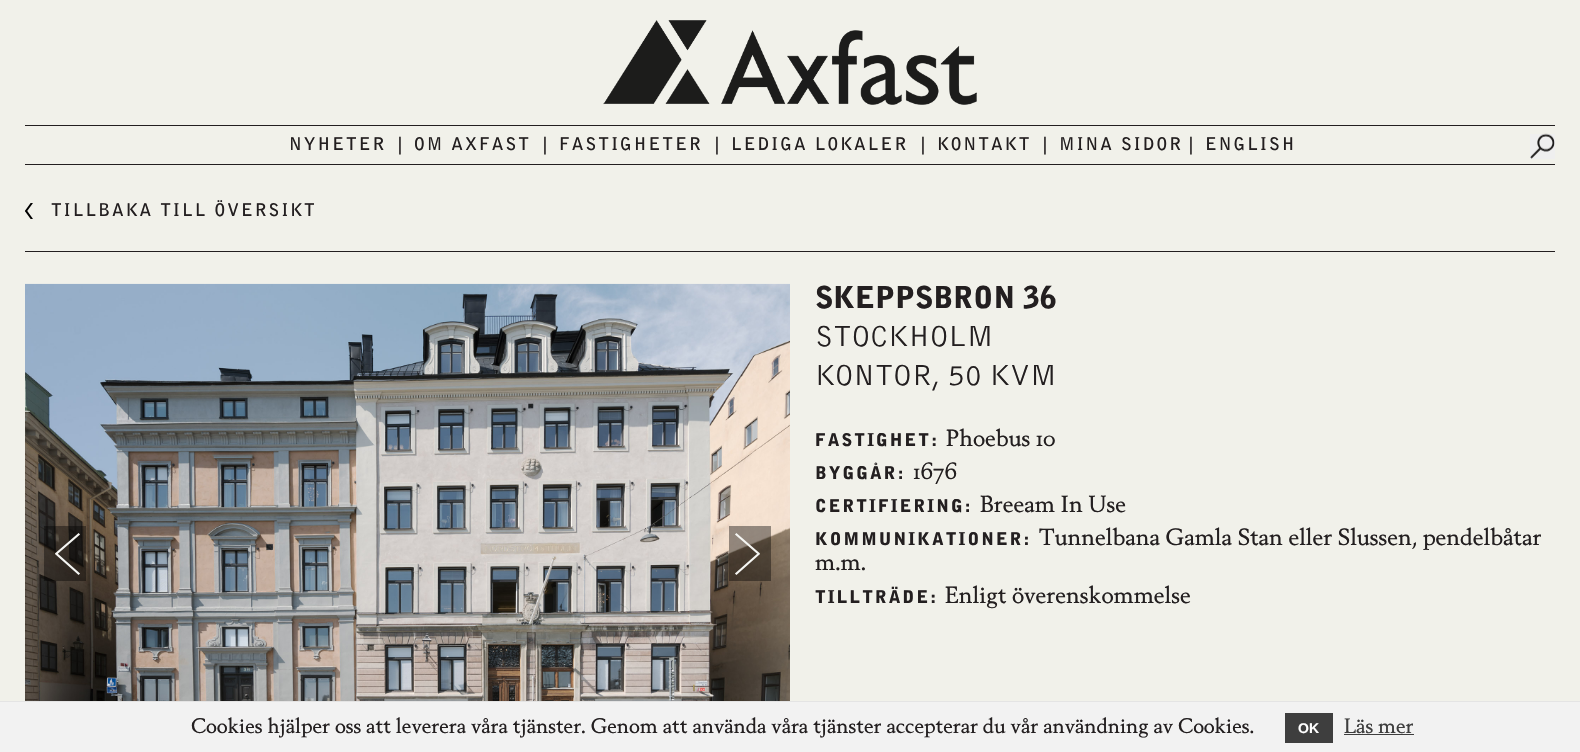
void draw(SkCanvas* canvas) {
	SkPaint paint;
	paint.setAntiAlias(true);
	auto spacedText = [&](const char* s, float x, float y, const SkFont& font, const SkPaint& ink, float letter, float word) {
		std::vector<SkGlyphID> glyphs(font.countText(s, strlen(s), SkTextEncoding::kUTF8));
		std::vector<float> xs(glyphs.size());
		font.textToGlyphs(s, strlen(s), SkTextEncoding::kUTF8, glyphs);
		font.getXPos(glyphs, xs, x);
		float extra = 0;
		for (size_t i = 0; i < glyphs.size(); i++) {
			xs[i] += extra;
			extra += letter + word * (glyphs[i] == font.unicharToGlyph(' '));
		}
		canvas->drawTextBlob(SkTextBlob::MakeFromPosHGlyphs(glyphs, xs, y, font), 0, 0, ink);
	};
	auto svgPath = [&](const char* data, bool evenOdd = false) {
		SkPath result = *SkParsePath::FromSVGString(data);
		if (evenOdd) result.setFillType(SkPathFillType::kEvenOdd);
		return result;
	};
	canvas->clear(0xfff1f1ea);
	canvas->drawImageRect(SkImages::DeferredFromEncodedData(SkData::MakeFromFileName("img1.png")), SkRect::MakeXYWH(603, 20, 374, 85), SkSamplingOptions());
	paint.setColor(0xff231f20);
	canvas->drawRect(SkRect::MakeXYWH(25, 125, 1530, 1), paint);
	SkFont f1(fontMgr->matchFamilyStyle("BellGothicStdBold", SkFontStyle::Normal()), 17.5);
	f1.setSubpixel(true);
	spacedText("NYHETER", 289, 150, f1, paint, 2.1, 0);
	spacedText("|", 398, 150, f1, paint, 2.1, 0);
	spacedText("OM AXFAST", 414, 150, f1, paint, 2.1, 0);
	spacedText("|", 543, 150, f1, paint, 2.1, 0);
	spacedText("FASTIGHETER", 559, 150, f1, paint, 2.1, 0);
	spacedText("|", 715, 150, f1, paint, 2.1, 0);
	spacedText("LEDIGA LOKALER", 731, 150, f1, paint, 2.1, 0);
	spacedText("|", 921, 150, f1, paint, 2.1, 0);
	spacedText("KONTAKT", 937, 150, f1, paint, 2.1, 0);
	spacedText("|", 1043, 150, f1, paint, 2.1, 0);
	spacedText("MINA SIDOR", 1059, 150, f1, paint, 2.1, 0);
	spacedText("|", 1189, 150, f1, paint, 2.1, 0);
	spacedText("ENGLISH", 1205, 150, f1, paint, 2.1, 0);
	paint.setColor(0xffefefef);
	canvas->drawRect(SkRect::MakeXYWH(1530, 134, 25, 25), paint);
	canvas->drawImageRect(SkImages::DeferredFromEncodedData(SkData::MakeFromFileName("img2.png")), SkRect::MakeXYWH(1530, 133, 25, 26), SkSamplingOptions());
	paint.setColor(0xff231f20);
	canvas->drawRect(SkRect::MakeXYWH(25, 164, 1530, 1), paint);
	canvas->save();
	canvas->clipRect(SkRect::MakeXYWH(25, 203, 8, 16));
	paint.setStroke(true);
	paint.setStrokeWidth(2);
	paint.setStrokeCap(SkPaint::kSquare_Cap);
	paint.setColor(0xff000000);
	canvas->drawPath(svgPath("M31.5 203.5L26 211M31.5 218.5L26 211"), paint);
	canvas->restore();
	paint.setStroke(false);
	paint.setColor(0xff231f20);
	spacedText("TILLBAKA TILL ÖVERSIKT", 51, 216, f1, paint, 2.1, 0);
	canvas->drawRect(SkRect::MakeXYWH(25, 251, 1530, 1), paint);
	canvas->drawImageRect(SkImages::DeferredFromEncodedData(SkData::MakeFromFileName("img3.png")), SkRect::MakeXYWH(25, 283, 765, 418), SkSamplingOptions());
	paint.setColor(0x66000000);
	canvas->drawRect(SkRect::MakeXYWH(44, 526, 42, 55), paint);
	paint.setStroke(true);
	paint.setStrokeWidth(2.2);
	paint.setColor(0xfff5f6f3);
	canvas->drawPath(svgPath("M78.5 534.5L56.5 553.5M78.5 573.5L56.5 554"), paint);
	paint.setStroke(false);
	paint.setColor(0x66000000);
	canvas->drawRect(SkRect::MakeXYWH(729, 526, 42, 55), paint);
	paint.setStroke(true);
	paint.setColor(0xfff5f6f3);
	canvas->drawPath(svgPath("M736.5 573.5L758.5 554M736.5 534.5L758.5 553.5"), paint);
	SkFont f2(fontMgr->matchFamilyStyle("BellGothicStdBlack", SkFontStyle::Normal()), 30);
	f2.setSubpixel(true);
	paint.setStroke(false);
	paint.setColor(0xff231f20);
	canvas->drawString("SKEPPSBRON 36", 815, 308, f2, paint);
	SkFont f3(fontMgr->matchFamilyStyle("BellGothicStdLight", SkFontStyle::Normal()), 30);
	f3.setSubpixel(true);
	canvas->drawString("STOCKHOLM", 815, 346, f3, paint);
	canvas->drawString("KONTOR, 50 KVM", 815, 385, f3, paint);
	SkFont f4(fontMgr->matchFamilyStyle("BellGothicStdBlack", SkFontStyle::Normal()), 17.5);
	f4.setSubpixel(true);
	spacedText("FASTIGHET:", 815, 446, f4, paint, 2.1, 0);
	SkFont f5(fontMgr->matchFamilyStyle("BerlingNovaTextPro", SkFontStyle::Normal()), 22.5);
	f5.setSubpixel(true);
	canvas->drawString("Phoebus 10", 946, 446, f5, paint);
	spacedText("BYGGÅR:", 815, 479, f4, paint, 2.1, 0);
	canvas->drawString("1676", 913, 479, f5, paint);
	spacedText("CERTIFIERING:", 815, 512, f4, paint, 2.1, 0);
	canvas->drawString("Breeam In Use", 980, 512, f5, paint);
	spacedText("KOMMUNIKATIONER:", 815, 545, f4, paint, 2.1, 0);
	canvas->drawString("Tunnelbana Gamla Stan eller Slussen, pendelbåtar", 1039, 545, f5, paint);
	canvas->drawString("m.m.", 815, 570, f5, paint);
	spacedText("TILLTRÄDE:", 815, 603, f4, paint, 2.1, 0);
	canvas->drawString("Enligt överenskommelse", 945, 603, f5, paint);
	paint.setColor(0xfff2f2f2);
	canvas->drawRect(SkRect::MakeXYWH(0, 702, 1580, 50), paint);
	paint.setColor(0xffe4e4e4);
	canvas->drawRect(SkRect::MakeXYWH(0, 701, 1580, 1), paint);
	SkFont f6(fontMgr->matchFamilyStyle("BerlingNovaTextPro", SkFontStyle::Normal()), 20);
	f6.setSubpixel(true);
	paint.setColor(0xff231f20);
	canvas->drawString("Cookies hjälper oss att leverera våra tjänster. Genom att använda våra tjänster accepterar du vår användning av Cookies.", 191, 733, f6, paint);
	paint.setColor(0xff3e3e3e);
	canvas->drawRect(SkRect::MakeXYWH(1285, 713, 48, 30), paint);
	SkFont f7(fontMgr->matchFamilyStyle("Liberation Sans", SkFontStyle::Bold()), 14);
	f7.setSubpixel(true);
	paint.setColor(0xffffffff);
	canvas->drawString("OK", 1298, 733, f7, paint);
	paint.setColor(0xff3e3e3e);
	canvas->drawString("Läs mer", 1344, 733, f6, paint);
	canvas->drawRect(SkRect::MakeXYWH(1344, 734, 70, 1), paint);
}
